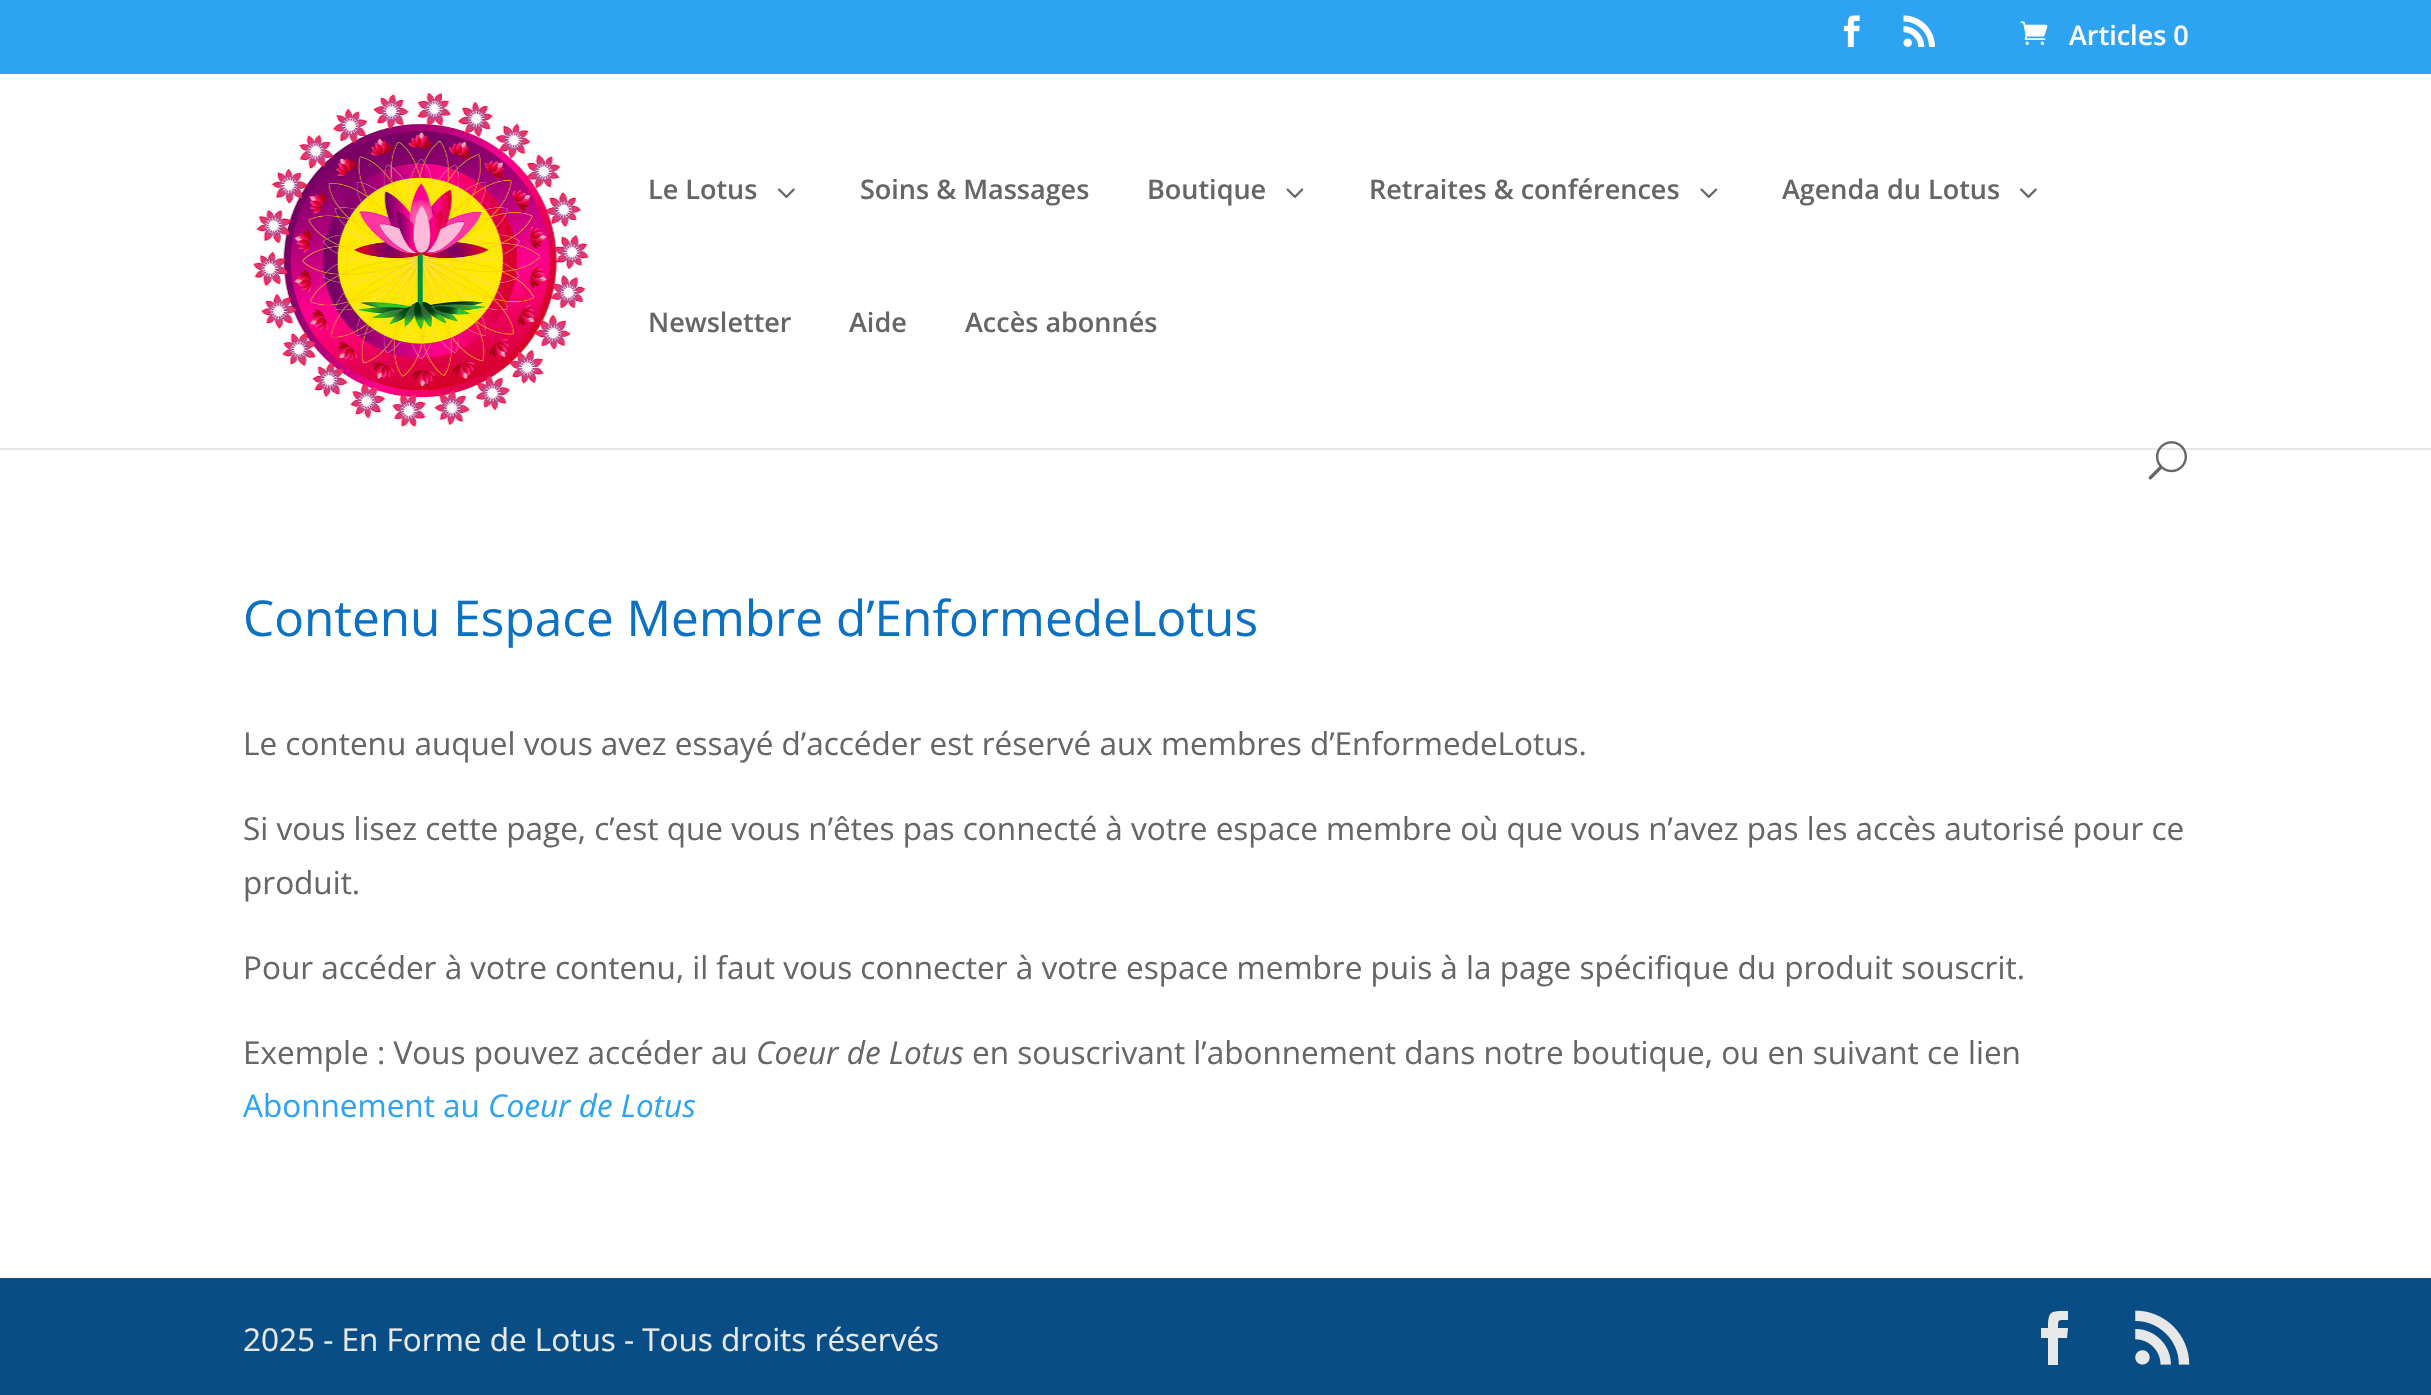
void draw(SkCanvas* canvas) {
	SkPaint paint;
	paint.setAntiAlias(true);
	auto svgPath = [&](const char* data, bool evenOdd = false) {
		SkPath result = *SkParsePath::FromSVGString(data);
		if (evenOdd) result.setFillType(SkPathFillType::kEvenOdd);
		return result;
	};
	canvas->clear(0xffffffff);
	paint.setColor(0xff2ea3f2);
	canvas->drawRect(SkRect::MakeXYWH(0, 0, 2431, 74), paint);
	canvas->drawImageRect(SkImages::DeferredFromEncodedData(SkData::MakeFromFileName("img1.png")), SkRect::MakeXYWH(1843, 15, 17, 32), SkSamplingOptions());
	canvas->drawImageRect(SkImages::DeferredFromEncodedData(SkData::MakeFromFileName("img2.png")), SkRect::MakeXYWH(1903, 15, 32, 32), SkSamplingOptions());
	canvas->drawImageRect(SkImages::DeferredFromEncodedData(SkData::MakeFromFileName("img3.png")), SkRect::MakeXYWH(2020, 21, 28, 24), SkSamplingOptions());
	SkFont f1(fontMgr->matchFamilyStyle("Open Sans", SkFontStyle(600, SkFontStyle::kNormal_Width, SkFontStyle::kUpright_Slant)), 27);
	f1.setSubpixel(true);
	paint.setColor(0xffffffff);
	canvas->drawString("Articles 0", 2069, 45, f1, paint);
	paint.setColor(0xffe6e6e6);
	canvas->drawRect(SkRect::MakeXYWH(0, 448, 2431, 2), paint);
	canvas->drawImageRect(SkImages::DeferredFromEncodedData(SkData::MakeFromFileName("img4.png")), SkRect::MakeXYWH(252, 92, 338, 336), SkSamplingOptions());
	paint.setColor(0xff666666);
	canvas->drawString("Le Lotus", 648, 199, f1, paint);
	canvas->drawImageRect(SkImages::DeferredFromEncodedData(SkData::MakeFromFileName("img5.png")), SkRect::MakeXYWH(778, 188, 17, 10), SkSamplingOptions());
	canvas->drawString("Soins & Massages", 860, 199, f1, paint);
	canvas->drawString("Boutique", 1147, 199, f1, paint);
	canvas->drawImageRect(SkImages::DeferredFromEncodedData(SkData::MakeFromFileName("img6.png")), SkRect::MakeXYWH(1286, 188, 18, 10), SkSamplingOptions());
	canvas->drawString("Retraites & conférences", 1369, 199, f1, paint);
	canvas->drawImageRect(SkImages::DeferredFromEncodedData(SkData::MakeFromFileName("img6.png")), SkRect::MakeXYWH(1700, 188, 18, 10), SkSamplingOptions());
	canvas->drawString("Agenda du Lotus", 1782, 199, f1, paint);
	canvas->drawImageRect(SkImages::DeferredFromEncodedData(SkData::MakeFromFileName("img5.png")), SkRect::MakeXYWH(2020, 188, 17, 10), SkSamplingOptions());
	canvas->drawString("Newsletter", 648, 332, f1, paint);
	canvas->drawString("Aide", 849, 332, f1, paint);
	canvas->drawString("Accès abonnés", 965, 332, f1, paint);
	canvas->drawImageRect(SkImages::DeferredFromEncodedData(SkData::MakeFromFileName("img7.png")), SkRect::MakeXYWH(2148, 441, 39, 39), SkSamplingOptions());
	SkFont f2(fontMgr->matchFamilyStyle("Open Sans", SkFontStyle::Normal()), 49.5);
	f2.setSubpixel(true);
	paint.setColor(0xff0c71c3);
	canvas->drawString("Contenu Espace Membre d’EnformedeLotus", 243, 636, f2, paint);
	SkFont f3(fontMgr->matchFamilyStyle("Open Sans", SkFontStyle::Normal()), 31.5);
	f3.setSubpixel(true);
	paint.setColor(0xff666666);
	canvas->drawString("Le contenu auquel vous avez essayé d’accéder est réservé aux membres d’EnformedeLotus.", 243, 755, f3, paint);
	canvas->drawString("Si vous lisez cette page, c’est que vous n’êtes pas connecté à votre espace membre où que vous n’avez pas les accès autorisé pour ce", 243, 840, f3, paint);
	canvas->drawString("produit.", 243, 894, f3, paint);
	canvas->drawString("Pour accéder à votre contenu, il faut vous connecter à votre espace membre puis à la page spécifique du produit souscrit.", 243, 979, f3, paint);
	canvas->drawString("Exemple : Vous pouvez accéder au", 243, 1064, f3, paint);
	SkFont f4(fontMgr->matchFamilyStyle("Open Sans", SkFontStyle::Italic()), 31.5);
	f4.setSubpixel(true);
	canvas->drawString("Coeur de Lotus", 756, 1064, f4, paint);
	canvas->drawString("en souscrivant l’abonnement dans notre boutique, ou en suivant ce lien", 972, 1064, f3, paint);
	paint.setColor(0xff2ea3f2);
	canvas->drawString("Abonnement au", 243, 1117, f3, paint);
	canvas->drawString("Coeur de Lotus", 488, 1117, f4, paint);
	paint.setColor(0xff084d85);
	canvas->drawRect(SkRect::MakeXYWH(0, 1278, 2431, 117), paint);
	paint.setColor(0xffe8e8e8);
	canvas->drawString("2025 - En Forme de Lotus - Tous droits réservés", 243, 1351, f3, paint);
	canvas->drawPath(svgPath("M2048 1365H2058V1338H2067L2068 1328H2058C2058 1319 2058 1320 2068 1320V1311C2051 1311 2048 1310 2048 1328H2041V1338H2048Z"), paint);
	canvas->drawImageRect(SkImages::DeferredFromEncodedData(SkData::MakeFromFileName("img8.png")), SkRect::MakeXYWH(2135, 1310, 55, 55), SkSamplingOptions());
}
